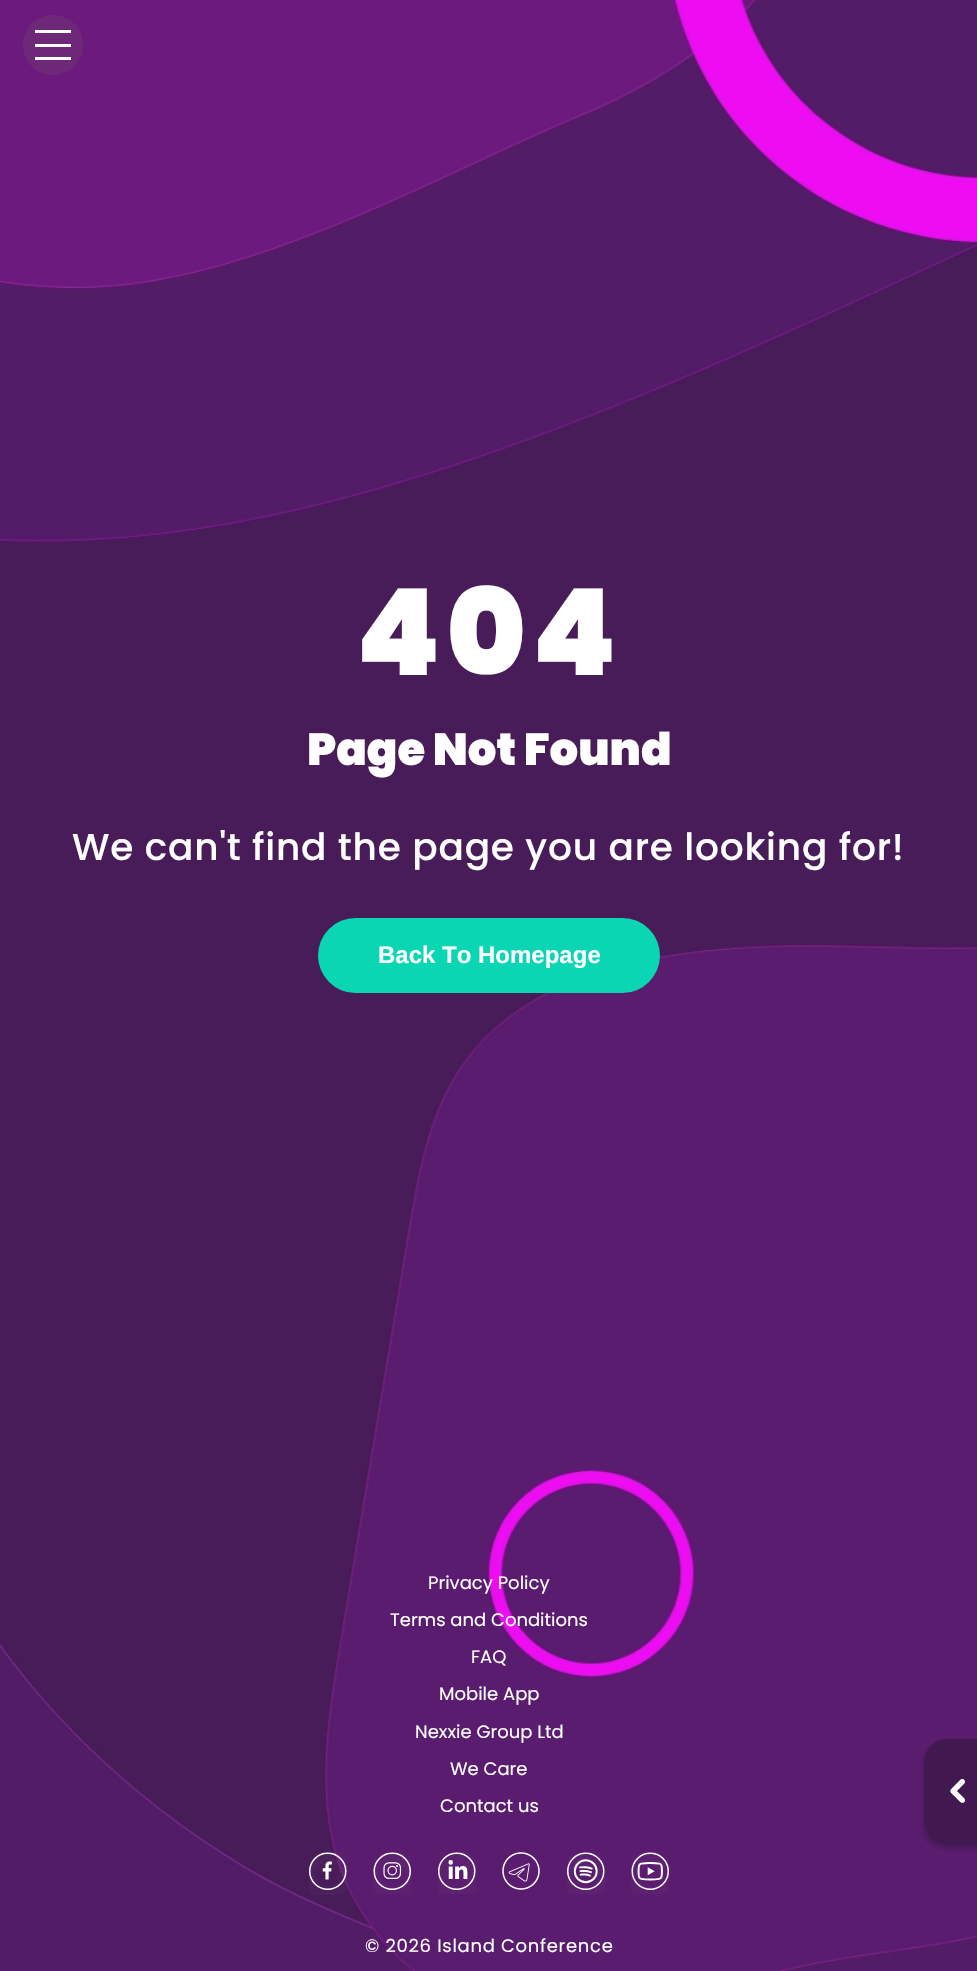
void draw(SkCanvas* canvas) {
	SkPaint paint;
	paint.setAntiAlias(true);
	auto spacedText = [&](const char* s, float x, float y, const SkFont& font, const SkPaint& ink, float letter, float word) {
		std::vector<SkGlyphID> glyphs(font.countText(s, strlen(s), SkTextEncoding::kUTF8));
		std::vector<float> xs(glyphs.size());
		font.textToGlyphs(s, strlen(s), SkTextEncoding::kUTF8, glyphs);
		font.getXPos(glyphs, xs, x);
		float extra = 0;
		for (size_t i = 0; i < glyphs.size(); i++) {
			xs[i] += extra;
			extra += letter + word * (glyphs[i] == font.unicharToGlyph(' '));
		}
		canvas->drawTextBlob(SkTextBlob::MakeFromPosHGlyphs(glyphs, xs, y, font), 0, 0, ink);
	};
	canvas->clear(0xffffffff);
	canvas->drawImageRect(SkImages::DeferredFromEncodedData(SkData::MakeFromFileName("img1.png")), SkRect::MakeXYWH(0, 0, 977, 1971), SkSamplingOptions());
	paint.setColor(0xff6d2978);
	canvas->drawCircle(53, 45, 30, paint);
	paint.setColor(0xffffffff);
	canvas->drawRect(SkRect::MakeXYWH(35, 30, 36, 3), paint);
	canvas->drawRect(SkRect::MakeXYWH(35, 44, 36, 3), paint);
	canvas->drawRect(SkRect::MakeXYWH(35, 57, 36, 3), paint);
	SkFont f1(fontMgr->matchFamilyStyle("Poppins", SkFontStyle(900, SkFontStyle::kNormal_Width, SkFontStyle::kUpright_Slant)), 120);
	f1.setSubpixel(true);
	spacedText("404", 356, 675, f1, paint, 6, 0);
	SkFont f2(fontMgr->matchFamilyStyle("Poppins", SkFontStyle(900, SkFontStyle::kNormal_Width, SkFontStyle::kUpright_Slant)), 45);
	f2.setSubpixel(true);
	canvas->drawString("Page Not Found", 307, 765, f2, paint);
	SkFont f3(fontMgr->matchFamilyStyle("Poppins", SkFontStyle(500, SkFontStyle::kNormal_Width, SkFontStyle::kUpright_Slant)), 37.5);
	f3.setSubpixel(true);
	spacedText("We can't find the page you are looking for!", 72, 860, f3, paint, 0.8, 0);
	paint.setColor(0xff0bd6b4);
	canvas->drawRoundRect(SkRect::MakeXYWH(318, 918, 342, 75), 37.5, 37.5, paint);
	SkFont f4(fontMgr->matchFamilyStyle("Liberation Sans", SkFontStyle::Bold()), 24);
	f4.setSubpixel(true);
	paint.setColor(0xffffffff);
	canvas->drawString("Back To Homepage", 378, 963, f4, paint);
	SkFont f5(fontMgr->matchFamilyStyle("Poppins", SkFontStyle::Normal()), 18);
	f5.setSubpixel(true);
	canvas->drawString("Privacy Policy", 428, 1589, f5, paint);
	canvas->drawString("Terms and Conditions", 390, 1626, f5, paint);
	canvas->drawString("FAQ", 471, 1663, f5, paint);
	canvas->drawString("Mobile App", 439, 1700, f5, paint);
	canvas->drawString("Nexxie Group Ltd", 415, 1738, f5, paint);
	canvas->drawString("We Care", 450, 1775, f5, paint);
	canvas->drawString("Contact us", 440, 1812, f5, paint);
	canvas->drawImageRect(SkImages::DeferredFromEncodedData(SkData::MakeFromFileName("img2.png")), SkRect::MakeXYWH(309, 1852, 38, 43), SkSamplingOptions());
	canvas->drawImageRect(SkImages::DeferredFromEncodedData(SkData::MakeFromFileName("img3.png")), SkRect::MakeXYWH(373, 1852, 38, 42), SkSamplingOptions());
	canvas->drawImageRect(SkImages::DeferredFromEncodedData(SkData::MakeFromFileName("img4.png")), SkRect::MakeXYWH(438, 1852, 38, 42), SkSamplingOptions());
	canvas->drawImageRect(SkImages::DeferredFromEncodedData(SkData::MakeFromFileName("img5.png")), SkRect::MakeXYWH(502, 1852, 38, 38), SkSamplingOptions());
	canvas->drawImageRect(SkImages::DeferredFromEncodedData(SkData::MakeFromFileName("img6.png")), SkRect::MakeXYWH(567, 1852, 38, 42), SkSamplingOptions());
	canvas->drawImageRect(SkImages::DeferredFromEncodedData(SkData::MakeFromFileName("img7.png")), SkRect::MakeXYWH(631, 1852, 38, 42), SkSamplingOptions());
	spacedText("© 2026 Island Conference", 365, 1952, f5, paint, 0.7, 0);
	paint.setColor(0x520c0e0f);
	paint.setMaskFilter(SkMaskFilter::MakeBlur(kNormal_SkBlurStyle, 3));
	canvas->drawRoundRect(SkRect::MakeXYWH(924, 1743, 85, 105), 23, 23, paint);
	paint.setMaskFilter(nullptr);
	paint.setColor(0xff41184f);
	canvas->drawRoundRect(SkRect::MakeXYWH(924, 1739, 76, 105), 23, 23, paint);
	canvas->drawImageRect(SkImages::DeferredFromEncodedData(SkData::MakeFromFileName("img8.png")), SkRect::MakeXYWH(950, 1779, 15, 24), SkSamplingOptions());
}
